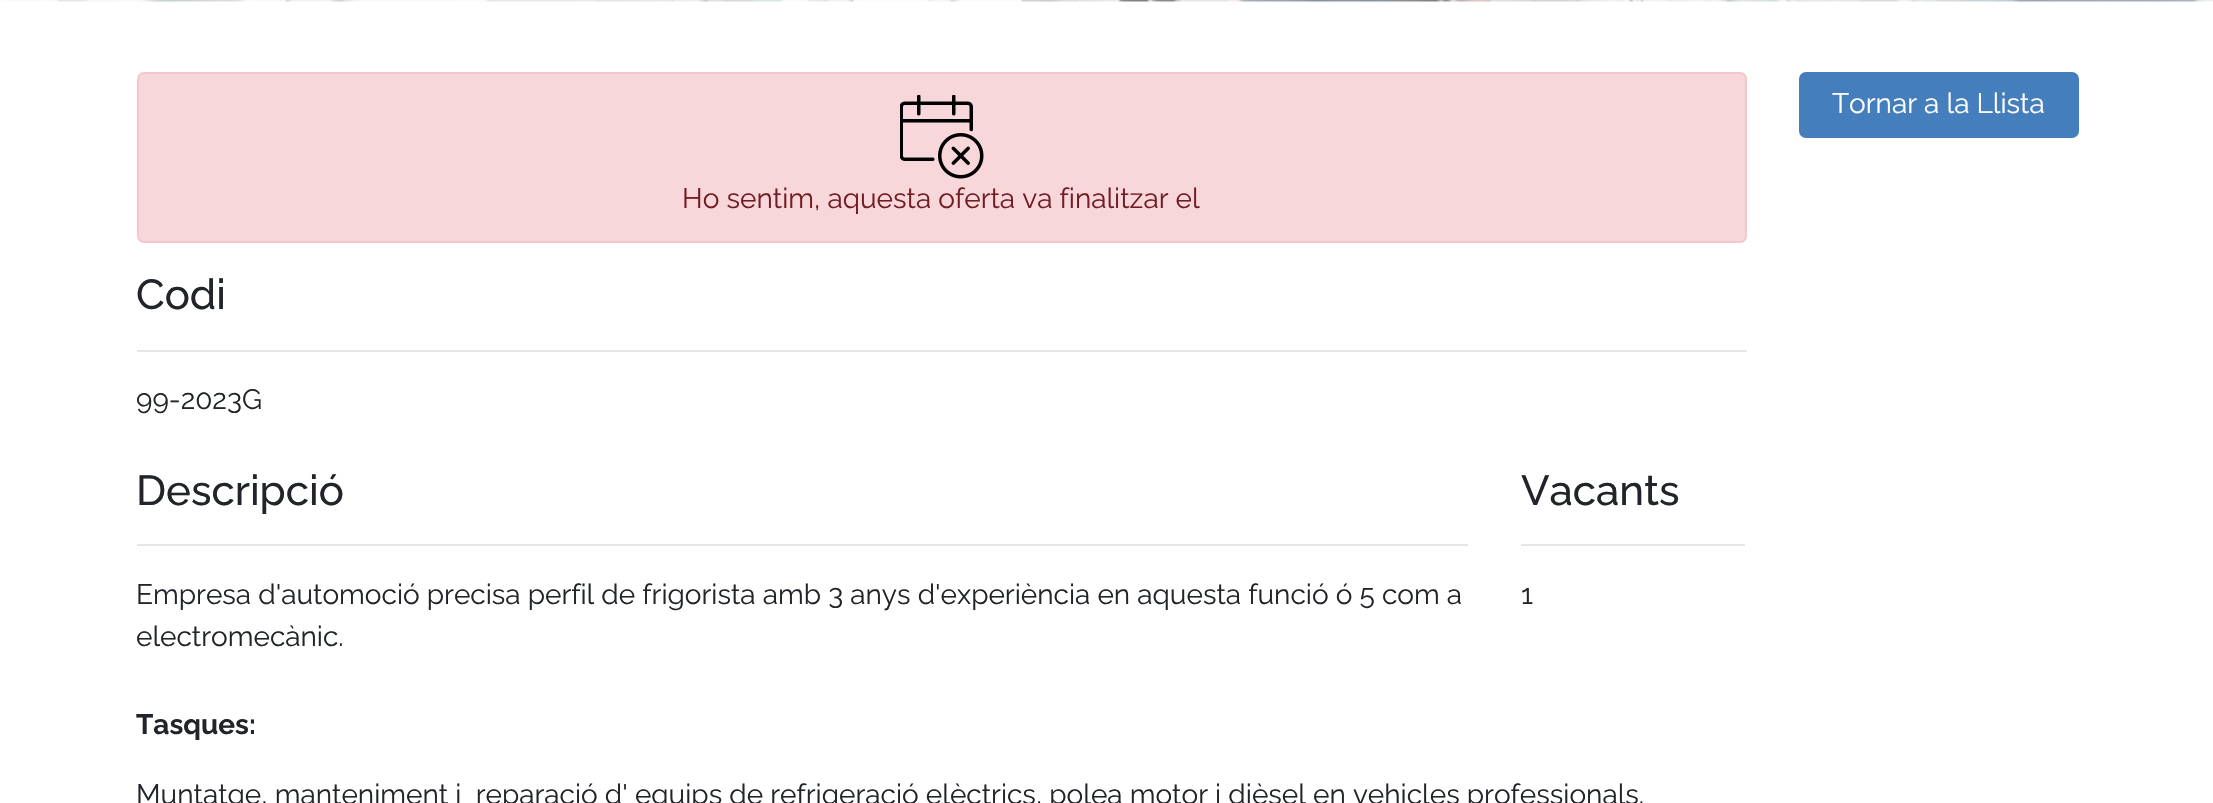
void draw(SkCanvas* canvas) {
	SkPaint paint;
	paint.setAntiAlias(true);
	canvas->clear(0xffffffff);
	canvas->drawImageRect(SkImages::DeferredFromEncodedData(SkData::MakeFromFileName("img1.png")), SkRect::MakeXYWH(0, 0, 2213, 2), SkSamplingOptions());
	paint.setColor(0xff447ebc);
	canvas->drawRoundRect(SkRect::MakeXYWH(1800, 73, 278, 64), 6, 6, paint);
	paint.setStroke(true);
	paint.setStrokeWidth(2);
	canvas->drawRoundRect(SkRect::MakeXYWH(1800, 73, 278, 64), 6, 6, paint);
	SkFont f1(fontMgr->matchFamilyStyle("Raleway", SkFontStyle::Normal()), 28);
	f1.setSubpixel(true);
	paint.setStroke(false);
	paint.setColor(0xffffffff);
	canvas->drawString("Tornar a la Llista", 1832, 113, f1, paint);
	paint.setColor(0xfff8d7da);
	canvas->drawRoundRect(SkRect::MakeXYWH(138, 73, 1608, 169), 6, 6, paint);
	paint.setStroke(true);
	paint.setColor(0xfff5c6cb);
	canvas->drawRoundRect(SkRect::MakeXYWH(138, 73, 1608, 169), 6, 6, paint);
	canvas->drawImageRect(SkImages::DeferredFromEncodedData(SkData::MakeFromFileName("img2.png")), SkRect::MakeXYWH(900, 95, 84, 84), SkSamplingOptions());
	paint.setStroke(false);
	paint.setColor(0xff721c24);
	canvas->drawString("Ho sentim, aquesta oferta va finalitzar el", 682, 208, f1, paint);
	SkFont f2(fontMgr->matchFamilyStyle("Raleway", SkFontStyle(500, SkFontStyle::kNormal_Width, SkFontStyle::kUpright_Slant)), 42);
	f2.setSubpixel(true);
	paint.setColor(0xff212529);
	canvas->drawString("Codi", 136, 309, f2, paint);
	paint.setColor(0xffe6e6e6);
	canvas->drawRect(SkRect::MakeXYWH(137, 350, 1610, 2), paint);
	paint.setColor(0xff212529);
	canvas->drawString("99-2023G", 136, 409, f1, paint);
	canvas->drawString("Descripció", 136, 505, f2, paint);
	paint.setColor(0xffe6e6e6);
	canvas->drawRect(SkRect::MakeXYWH(137, 544, 1331, 2), paint);
	paint.setColor(0xff212529);
	canvas->drawString("Empresa d'automoció precisa perfil de frigorista amb 3 anys d'experiència en aquesta funció ó 5 com a", 136, 604, f1, paint);
	canvas->drawString("electromecànic.", 136, 646, f1, paint);
	canvas->drawString("Vacants", 1521, 505, f2, paint);
	paint.setColor(0xffe6e6e6);
	canvas->drawRect(SkRect::MakeXYWH(1521, 544, 224, 2), paint);
	paint.setColor(0xff212529);
	canvas->drawString("1", 1521, 604, f1, paint);
	SkFont f3(fontMgr->matchFamilyStyle("Raleway", SkFontStyle::Bold()), 28);
	f3.setSubpixel(true);
	canvas->drawString("Tasques:", 136, 734, f3, paint);
	canvas->drawString("Muntatge, manteniment i  reparació d' equips de refrigeració elèctrics, polea motor i dièsel en vehicles professionals.", 136, 804, f1, paint);
}
